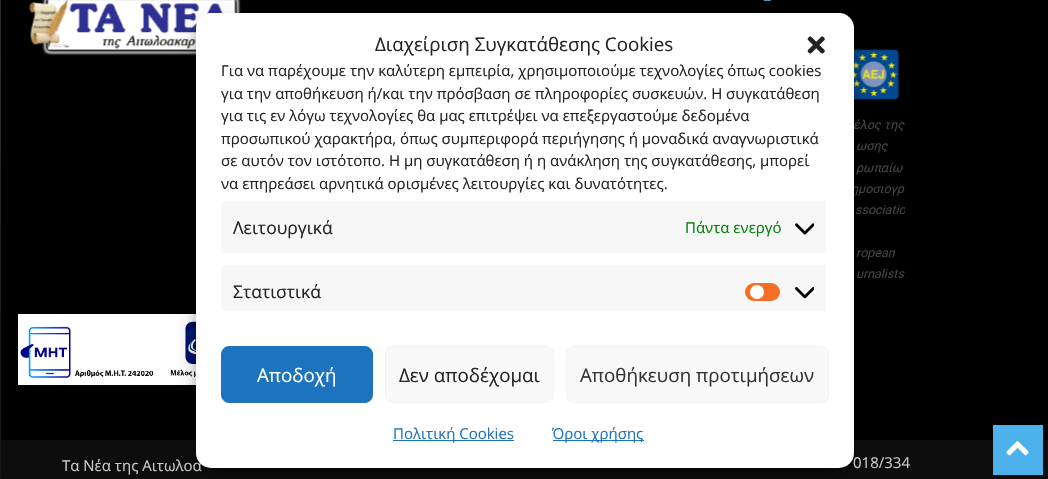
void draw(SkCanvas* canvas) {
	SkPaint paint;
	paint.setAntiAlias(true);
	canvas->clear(0xffffffff);
	paint.setColor(0xff000000);
	canvas->drawRect(SkRect::MakeXYWH(1, 0, 1047, 440), paint);
	canvas->drawImageRect(SkImages::DeferredFromEncodedData(SkData::MakeFromFileName("img4.png")), SkRect::MakeXYWH(29, 0, 212, 56), SkSamplingOptions());
	paint.setColor(0xffffffff);
	canvas->drawRect(SkRect::MakeXYWH(18, 314, 178, 71), paint);
	canvas->drawImageRect(SkImages::DeferredFromEncodedData(SkData::MakeFromFileName("img5.png")), SkRect::MakeXYWH(20, 321, 176, 57), SkSamplingOptions());
	canvas->drawImageRect(SkImages::DeferredFromEncodedData(SkData::MakeFromFileName("img7.png")), SkRect::MakeXYWH(854, 49, 46, 51), SkSamplingOptions());
	paint.setColor(0xff0d0d0d);
	canvas->drawRect(SkRect::MakeXYWH(1, 440, 1047, 39), paint);
	paint.setColor(0x3b000000);
	paint.setMaskFilter(SkMaskFilter::MakeBlur(kNormal_SkBlurStyle, 4));
	canvas->drawRoundRect(SkRect::MakeXYWH(196, 20, 658, 455), 15, 15, paint);
	paint.setMaskFilter(nullptr);
	canvas->drawImageRect(SkImages::DeferredFromEncodedData(SkData::MakeFromFileName("img6.png")), SkRect::MakeXYWH(763, 0, 8, 1), SkSamplingOptions());
	paint.setColor(0x30000000);
	paint.setMaskFilter(SkMaskFilter::MakeBlur(kNormal_SkBlurStyle, 12.5));
	canvas->drawRoundRect(SkRect::MakeXYWH(196, 25, 658, 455), 15, 15, paint);
	paint.setMaskFilter(nullptr);
	SkFont f1(fontMgr->matchFamilyStyle("Roboto", SkFontStyle::Italic()), 12.5);
	f1.setSubpixel(true);
	paint.setColor(0xff444444);
	canvas->drawString("ημοσιογρ", 851, 193, f1, paint);
	SkFont f2(fontMgr->matchFamilyStyle("Open Sans", SkFontStyle::Normal()), 15);
	f2.setSubpixel(true);
	paint.setColor(0xffcccccc);
	canvas->drawString("Τα Νέα της Αιτωλοα", 62, 471, f2, paint);
	canvas->drawString("018/334", 853, 468, f2, paint);
	paint.setColor(0xffffffff);
	canvas->drawRoundRect(SkRect::MakeXYWH(196, 13, 658, 455), 15, 15, paint);
	SkFont f3(fontMgr->matchFamilyStyle("Open Sans", SkFontStyle::Normal()), 18.75);
	f3.setSubpixel(true);
	paint.setColor(0xff222222);
	canvas->drawString("Διαχείριση Συγκατάθεσης Cookies", 375, 51, f3, paint);
	canvas->drawImageRect(SkImages::DeferredFromEncodedData(SkData::MakeFromFileName("img1.png")), SkRect::MakeXYWH(807, 36, 18, 18), SkSamplingOptions());
	canvas->drawString("Για να παρέχουμε την καλύτερη εμπειρία, χρησιμοποιούμε τεχνολογίες όπως cookies", 221, 76, f2, paint);
	canvas->drawString("για την αποθήκευση ή/και την πρόσβαση σε πληροφορίες συσκευών. Η συγκατάθεση", 221, 99, f2, paint);
	canvas->drawString("για τις εν λόγω τεχνολογίες θα μας επιτρέψει να επεξεργαστούμε δεδομένα", 221, 121, f2, paint);
	canvas->drawString("προσωπικού χαρακτήρα, όπως συμπεριφορά περιήγησης ή μοναδικά αναγνωριστικά", 221, 144, f2, paint);
	canvas->drawString("σε αυτόν τον ιστότοπο. Η μη συγκατάθεση ή η ανάκληση της συγκατάθεσης, μπορεί", 221, 166, f2, paint);
	canvas->drawString("να επηρεάσει αρνητικά ορισμένες λειτουργίες και δυνατότητες.", 221, 189, f2, paint);
	paint.setColor(0xfff7f7f7);
	canvas->drawRect(SkRect::MakeXYWH(221, 201, 605, 52), paint);
	SkFont f4(fontMgr->matchFamilyStyle("Open Sans", SkFontStyle::Normal()), 17.5);
	f4.setSubpixel(true);
	paint.setColor(0xff222222);
	canvas->drawString("Λειτουργικά", 233, 234, f4, paint);
	paint.setColor(0xff008000);
	canvas->drawString("Πάντα ενεργό", 685, 233, f2, paint);
	canvas->drawImageRect(SkImages::DeferredFromEncodedData(SkData::MakeFromFileName("img2.png")), SkRect::MakeXYWH(795, 223, 19, 12), SkSamplingOptions());
	paint.setColor(0xfff7f7f7);
	canvas->drawRect(SkRect::MakeXYWH(221, 265, 605, 46), paint);
	paint.setColor(0xff222222);
	canvas->drawString("Στατιστικά", 233, 298, f4, paint);
	paint.setColor(0xfff56e28);
	canvas->drawRoundRect(SkRect::MakeXYWH(745, 283, 35, 18), 9, 9, paint);
	paint.setColor(0xffffffff);
	canvas->drawCircle(757, 292, 7, paint);
	canvas->drawImageRect(SkImages::DeferredFromEncodedData(SkData::MakeFromFileName("img3.png")), SkRect::MakeXYWH(795, 287, 19, 12), SkSamplingOptions());
	paint.setColor(0xff1e73be);
	canvas->drawRoundRect(SkRect::MakeXYWH(221.5, 346.5, 151, 56), 7.5, 7.5, paint);
	paint.setStroke(true);
	paint.setStrokeWidth(1);
	canvas->drawRoundRect(SkRect::MakeXYWH(221.5, 346.5, 151, 56), 7.5, 7.5, paint);
	paint.setStroke(false);
	paint.setColor(0xffffffff);
	canvas->drawString("Αποδοχή", 257, 382, f3, paint);
	paint.setColor(0xfff9f9f9);
	canvas->drawRoundRect(SkRect::MakeXYWH(385.5, 346.5, 168, 56), 7.5, 7.5, paint);
	paint.setStroke(true);
	paint.setColor(0xfff2f2f2);
	canvas->drawRoundRect(SkRect::MakeXYWH(385.5, 346.5, 168, 56), 7.5, 7.5, paint);
	paint.setStroke(false);
	paint.setColor(0xff222222);
	canvas->drawString("Δεν αποδέχομαι", 399, 382, f3, paint);
	paint.setColor(0xfff9f9f9);
	canvas->drawRoundRect(SkRect::MakeXYWH(566.5, 346.5, 262, 56), 7.5, 7.5, paint);
	paint.setStroke(true);
	paint.setColor(0xfff2f2f2);
	canvas->drawRoundRect(SkRect::MakeXYWH(566.5, 346.5, 262, 56), 7.5, 7.5, paint);
	paint.setStroke(false);
	paint.setColor(0xff333333);
	canvas->drawString("Αποθήκευση προτιμήσεων", 580, 382, f3, paint);
	paint.setColor(0xff1e73be);
	canvas->drawRect(SkRect::MakeXYWH(393, 440, 121, 1), paint);
	canvas->drawString("Πολιτική Cookies", 393, 439, f2, paint);
	canvas->drawRect(SkRect::MakeXYWH(553, 440, 91, 1), paint);
	canvas->drawString("Όροι χρήσης", 552, 439, f2, paint);
	{
		const SkColor colors[] = {0xff111111, 0xff3a3a3a};
		const float stops[] = {0, 1};
		const SkPoint ends[] = {{524, 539}, {524, -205}};
		paint.setShader(SkGradientShader::MakeLinear(ends, colors, stops, 2, SkTileMode::kClamp));
		paint.setAlpha(255);
	}
	canvas->drawRect(SkRect::MakeXYWH(0, 0, 1, 479), paint);
	paint.setShader(nullptr);
	paint.setColor(0xff444444);
	canvas->drawString("έλος της", 853, 129, f1, paint);
	canvas->drawString("ωσης", 856, 150, f1, paint);
	canvas->drawString("ρωπαίω", 856, 172, f1, paint);
	canvas->save();
	canvas->clipRect(SkRect::MakeXYWH(811, 44, 94, 247));
	canvas->drawString("ssociatio", 855, 214, f1, paint);
	canvas->restore();
	canvas->drawString("ropean", 856, 257, f1, paint);
	canvas->drawString("urnalists", 856, 278, f1, paint);
	paint.setColor(0xff4db2ec);
	canvas->drawRect(SkRect::MakeXYWH(993, 425, 50, 50), paint);
	canvas->drawImageRect(SkImages::DeferredFromEncodedData(SkData::MakeFromFileName("img8.png")), SkRect::MakeXYWH(1006, 441, 23, 15), SkSamplingOptions());
}
